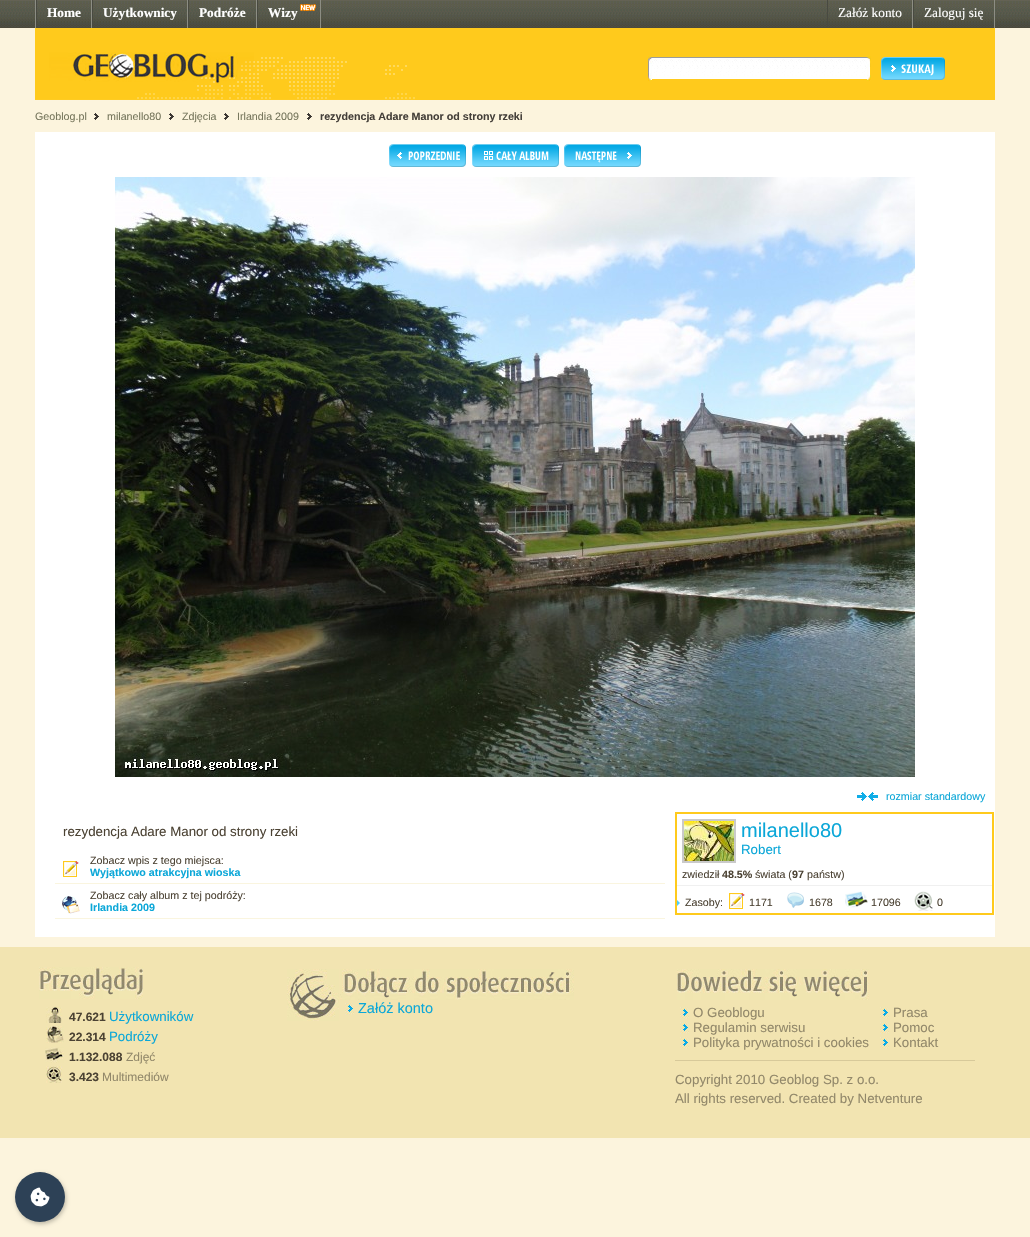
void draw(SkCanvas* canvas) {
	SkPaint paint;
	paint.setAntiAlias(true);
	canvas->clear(0xfffcf4dd);
	canvas->drawImageRect(SkImages::DeferredFromEncodedData(SkData::MakeFromFileName("img1.png")), SkRect::MakeXYWH(0, 0, 1030, 28), SkSamplingOptions());
	paint.setColor(0xff8c8d83);
	canvas->drawRect(SkRect::MakeXYWH(35, 0, 1, 28), paint);
	canvas->drawRect(SkRect::MakeXYWH(91, 0, 1, 28), paint);
	paint.setColor(0xff494a41);
	canvas->drawRect(SkRect::MakeXYWH(36, 0, 1, 28), paint);
	SkFont f1(fontMgr->matchFamilyStyle("Liberation Serif", SkFontStyle::Bold()), 13.3);
	f1.setSubpixel(true);
	paint.setColor(0xffffffff);
	canvas->drawString("Home", 47, 17, f1, paint);
	paint.setColor(0xff8c8d83);
	canvas->drawRect(SkRect::MakeXYWH(187, 0, 1, 28), paint);
	paint.setColor(0xff494a41);
	canvas->drawRect(SkRect::MakeXYWH(92, 0, 1, 28), paint);
	paint.setColor(0xffffffff);
	canvas->drawString("Użytkownicy", 103, 17, f1, paint);
	paint.setColor(0xff8c8d83);
	canvas->drawRect(SkRect::MakeXYWH(256, 0, 1, 28), paint);
	paint.setColor(0xff494a41);
	canvas->drawRect(SkRect::MakeXYWH(188, 0, 1, 28), paint);
	paint.setColor(0xffffffff);
	canvas->drawString("Podróże", 199, 17, f1, paint);
	paint.setColor(0xff8c8d83);
	canvas->drawRect(SkRect::MakeXYWH(320, 0, 1, 28), paint);
	paint.setColor(0xff494a41);
	canvas->drawRect(SkRect::MakeXYWH(257, 0, 1, 28), paint);
	paint.setColor(0xffffffff);
	canvas->drawString("Wizy", 268, 17, f1, paint);
	canvas->drawImageRect(SkImages::DeferredFromEncodedData(SkData::MakeFromFileName("img2.png")), SkRect::MakeXYWH(300, 4, 16, 7), SkSamplingOptions());
	paint.setColor(0xff8c8d83);
	canvas->drawRect(SkRect::MakeXYWH(912, 0, 1, 28), paint);
	paint.setColor(0xff494a41);
	canvas->drawRect(SkRect::MakeXYWH(827, 0, 1, 28), paint);
	SkFont f2(fontMgr->matchFamilyStyle("Liberation Serif", SkFontStyle::Normal()), 13.3);
	f2.setSubpixel(true);
	paint.setColor(0xffffffff);
	canvas->drawString("Załóż konto", 838, 17, f2, paint);
	paint.setColor(0xff8c8d83);
	canvas->drawRect(SkRect::MakeXYWH(994, 0, 1, 28), paint);
	paint.setColor(0xff494a41);
	canvas->drawRect(SkRect::MakeXYWH(913, 0, 1, 28), paint);
	paint.setColor(0xffffffff);
	canvas->drawString("Zaloguj się", 924, 17, f2, paint);
	paint.setColor(0xffffca1c);
	canvas->drawRect(SkRect::MakeXYWH(35, 28, 960, 72), paint);
	canvas->drawImageRect(SkImages::DeferredFromEncodedData(SkData::MakeFromFileName("img3.png")), SkRect::MakeXYWH(35, 52, 380, 48), SkSamplingOptions());
	canvas->drawImageRect(SkImages::DeferredFromEncodedData(SkData::MakeFromFileName("img4.png")), SkRect::MakeXYWH(648, 56, 4, 25), SkSamplingOptions());
	paint.setColor(0xffffffff);
	canvas->drawRect(SkRect::MakeXYWH(652, 78, 215, 1), paint);
	canvas->drawImageRect(SkImages::DeferredFromEncodedData(SkData::MakeFromFileName("img5.png")), SkRect::MakeXYWH(652, 56, 215, 22), SkSamplingOptions());
	canvas->drawImageRect(SkImages::DeferredFromEncodedData(SkData::MakeFromFileName("img6.png")), SkRect::MakeXYWH(867, 56, 4, 25), SkSamplingOptions());
	canvas->drawImageRect(SkImages::DeferredFromEncodedData(SkData::MakeFromFileName("img7.png")), SkRect::MakeXYWH(881, 57, 64, 23), SkSamplingOptions());
	SkFont f3(fontMgr->matchFamilyStyle("Liberation Sans", SkFontStyle::Normal()), 10.7);
	f3.setSubpixel(true);
	paint.setColor(0xff76765c);
	canvas->drawString("Geoblog.pl", 35, 120, f3, paint);
	canvas->drawImageRect(SkImages::DeferredFromEncodedData(SkData::MakeFromFileName("img8.png")), SkRect::MakeXYWH(94, 113, 5, 7), SkSamplingOptions());
	canvas->drawString("milanello80", 107, 120, f3, paint);
	canvas->drawImageRect(SkImages::DeferredFromEncodedData(SkData::MakeFromFileName("img8.png")), SkRect::MakeXYWH(169, 113, 5, 7), SkSamplingOptions());
	canvas->drawString("Zdjęcia", 182, 120, f3, paint);
	canvas->drawImageRect(SkImages::DeferredFromEncodedData(SkData::MakeFromFileName("img8.png")), SkRect::MakeXYWH(224, 113, 5, 7), SkSamplingOptions());
	canvas->drawString("Irlandia 2009", 237, 120, f3, paint);
	canvas->drawImageRect(SkImages::DeferredFromEncodedData(SkData::MakeFromFileName("img8.png")), SkRect::MakeXYWH(307, 113, 5, 7), SkSamplingOptions());
	SkFont f4(fontMgr->matchFamilyStyle("Liberation Sans", SkFontStyle::Bold()), 10.7);
	f4.setSubpixel(true);
	paint.setColor(0xff443f39);
	canvas->drawString("rezydencja Adare Manor od strony rzeki", 320, 120, f4, paint);
	paint.setColor(0xffffffff);
	canvas->drawRect(SkRect::MakeXYWH(35, 132, 960, 805), paint);
	canvas->drawImageRect(SkImages::DeferredFromEncodedData(SkData::MakeFromFileName("img9.png")), SkRect::MakeXYWH(389, 144, 77, 23), SkSamplingOptions());
	canvas->drawImageRect(SkImages::DeferredFromEncodedData(SkData::MakeFromFileName("img10.png")), SkRect::MakeXYWH(472, 144, 87, 23), SkSamplingOptions());
	canvas->drawImageRect(SkImages::DeferredFromEncodedData(SkData::MakeFromFileName("img11.png")), SkRect::MakeXYWH(564, 144, 77, 23), SkSamplingOptions());
	canvas->drawImageRect(SkImages::DeferredFromEncodedData(SkData::MakeFromFileName("img12.png")), SkRect::MakeXYWH(115, 177, 800, 600), SkSamplingOptions());
	canvas->drawImageRect(SkImages::DeferredFromEncodedData(SkData::MakeFromFileName("img13.png")), SkRect::MakeXYWH(857, 792, 21, 9), SkSamplingOptions());
	paint.setColor(0xff0ba7d8);
	canvas->drawString("rozmiar standardowy", 886, 800, f3, paint);
	SkFont f5(fontMgr->matchFamilyStyle("Liberation Sans", SkFontStyle::Normal()), 13.3);
	f5.setSubpixel(true);
	paint.setColor(0xff4b4233);
	canvas->drawString("rezydencja Adare Manor od strony rzeki", 63, 836, f5, paint);
	paint.setColor(0xfffaf5df);
	canvas->drawRect(SkRect::MakeXYWH(55, 883, 610, 1), paint);
	canvas->drawImageRect(SkImages::DeferredFromEncodedData(SkData::MakeFromFileName("img14.png")), SkRect::MakeXYWH(63, 861, 16, 16), SkSamplingOptions());
	paint.setColor(0xff4b4233);
	canvas->drawString("Zobacz wpis z tego miejsca:", 90, 864, f3, paint);
	paint.setColor(0xff0ba7d8);
	canvas->drawString("Wyjątkowo atrakcyjna wioska", 90, 876, f4, paint);
	paint.setColor(0xfffaf5df);
	canvas->drawRect(SkRect::MakeXYWH(55, 918, 610, 1), paint);
	canvas->drawImageRect(SkImages::DeferredFromEncodedData(SkData::MakeFromFileName("img15.png")), SkRect::MakeXYWH(62, 896, 18, 18), SkSamplingOptions());
	paint.setColor(0xff4b4233);
	canvas->drawString("Zobacz cały album z tej podróży:", 90, 899, f3, paint);
	paint.setColor(0xff0ba7d8);
	canvas->drawString("Irlandia 2009", 90, 911, f4, paint);
	paint.setStroke(true);
	paint.setStrokeWidth(2);
	paint.setColor(0xffffca1c);
	canvas->drawRect(SkRect::MakeXYWH(676, 813, 317, 101), paint);
	paint.setStroke(false);
	paint.setColor(0xfff0f0f0);
	canvas->drawRect(SkRect::MakeXYWH(677, 885, 315, 1), paint);
	paint.setStroke(true);
	paint.setColor(0xffcacaca);
	canvas->drawRect(SkRect::MakeXYWH(683, 820, 52, 42), paint);
	canvas->drawImageRect(SkImages::DeferredFromEncodedData(SkData::MakeFromFileName("img16.png")), SkRect::MakeXYWH(684, 821, 50, 40), SkSamplingOptions());
	SkFont f6(fontMgr->matchFamilyStyle("Liberation Sans", SkFontStyle::Normal()), 20);
	f6.setSubpixel(true);
	paint.setStroke(false);
	paint.setColor(0xff0ba7d8);
	canvas->drawString("milanello80", 741, 837, f6, paint);
	canvas->drawString("Robert", 741, 854, f5, paint);
	paint.setColor(0xff4b4233);
	canvas->drawString("zwiedził", 682, 878, f3, paint);
	canvas->drawString("48.5%", 722, 878, f4, paint);
	canvas->drawString("świata (", 755, 878, f3, paint);
	canvas->drawString("97", 792, 878, f4, paint);
	canvas->drawString("państw)", 807, 878, f3, paint);
	canvas->drawImageRect(SkImages::DeferredFromEncodedData(SkData::MakeFromFileName("img17.png")), SkRect::MakeXYWH(677, 900, 3, 6), SkSamplingOptions());
	canvas->drawString("Zasoby:", 685, 906, f3, paint);
	canvas->drawImageRect(SkImages::DeferredFromEncodedData(SkData::MakeFromFileName("img14.png")), SkRect::MakeXYWH(729, 893, 16, 16), SkSamplingOptions());
	canvas->drawString("1171", 749, 906, f3, paint);
	canvas->drawImageRect(SkImages::DeferredFromEncodedData(SkData::MakeFromFileName("img18.png")), SkRect::MakeXYWH(787, 892, 17, 16), SkSamplingOptions());
	canvas->drawString("1678", 809, 906, f3, paint);
	canvas->drawImageRect(SkImages::DeferredFromEncodedData(SkData::MakeFromFileName("img19.png")), SkRect::MakeXYWH(845, 891, 23, 17), SkSamplingOptions());
	canvas->drawString("17096", 871, 906, f3, paint);
	canvas->drawImageRect(SkImages::DeferredFromEncodedData(SkData::MakeFromFileName("img20.png")), SkRect::MakeXYWH(914, 891, 19, 20), SkSamplingOptions());
	canvas->drawString("0", 937, 906, f3, paint);
	paint.setColor(0xfff2e4b1);
	canvas->drawRect(SkRect::MakeXYWH(0, 947, 1030, 191), paint);
	canvas->drawImageRect(SkImages::DeferredFromEncodedData(SkData::MakeFromFileName("img21.png")), SkRect::MakeXYWH(287, 969, 52, 52), SkSamplingOptions());
	canvas->drawImageRect(SkImages::DeferredFromEncodedData(SkData::MakeFromFileName("img22.png")), SkRect::MakeXYWH(340, 969, 234, 31), SkSamplingOptions());
	canvas->drawImageRect(SkImages::DeferredFromEncodedData(SkData::MakeFromFileName("img23.png")), SkRect::MakeXYWH(345, 1003, 9, 12), SkSamplingOptions());
	SkFont f7(fontMgr->matchFamilyStyle("Liberation Sans", SkFontStyle::Normal()), 14.5);
	f7.setSubpixel(true);
	paint.setColor(0xff0ba7d8);
	canvas->drawString("Załóż konto", 358, 1013, f7, paint);
	canvas->drawImageRect(SkImages::DeferredFromEncodedData(SkData::MakeFromFileName("img24.png")), SkRect::MakeXYWH(39, 967, 104, 32), SkSamplingOptions());
	canvas->drawImageRect(SkImages::DeferredFromEncodedData(SkData::MakeFromFileName("img25.png")), SkRect::MakeXYWH(46, 1007, 16, 16), SkSamplingOptions());
	SkFont f8(fontMgr->matchFamilyStyle("Liberation Sans", SkFontStyle::Bold()), 12);
	f8.setSubpixel(true);
	paint.setColor(0xff4b4233);
	canvas->drawString("47.621", 69, 1021, f8, paint);
	paint.setColor(0xff0ba7d8);
	canvas->drawString("Użytkowników", 109, 1021, f5, paint);
	canvas->drawImageRect(SkImages::DeferredFromEncodedData(SkData::MakeFromFileName("img26.png")), SkRect::MakeXYWH(46, 1026, 18, 17), SkSamplingOptions());
	paint.setColor(0xff4b4233);
	canvas->drawString("22.314", 69, 1041, f8, paint);
	paint.setColor(0xff0ba7d8);
	canvas->drawString("Podróży", 109, 1041, f5, paint);
	canvas->drawImageRect(SkImages::DeferredFromEncodedData(SkData::MakeFromFileName("img27.png")), SkRect::MakeXYWH(45, 1047, 19, 16), SkSamplingOptions());
	paint.setColor(0xff4b4233);
	canvas->drawString("1.132.088", 69, 1061, f8, paint);
	SkFont f9(fontMgr->matchFamilyStyle("Liberation Sans", SkFontStyle::Normal()), 12);
	f9.setSubpixel(true);
	paint.setColor(0xff92886a);
	canvas->drawString("Zdjęć", 126, 1061, f9, paint);
	canvas->drawImageRect(SkImages::DeferredFromEncodedData(SkData::MakeFromFileName("img28.png")), SkRect::MakeXYWH(46, 1066, 16, 17), SkSamplingOptions());
	paint.setColor(0xff4b4233);
	canvas->drawString("3.423", 69, 1081, f8, paint);
	paint.setColor(0xff92886a);
	canvas->drawString("Multimediów", 102, 1081, f9, paint);
	canvas->drawImageRect(SkImages::DeferredFromEncodedData(SkData::MakeFromFileName("img29.png")), SkRect::MakeXYWH(677, 969, 192, 31), SkSamplingOptions());
	paint.setColor(0xffd7c99a);
	canvas->drawRect(SkRect::MakeXYWH(675, 1060, 300, 1), paint);
	canvas->drawImageRect(SkImages::DeferredFromEncodedData(SkData::MakeFromFileName("img23.png")), SkRect::MakeXYWH(680, 1007, 9, 12), SkSamplingOptions());
	paint.setColor(0xff92886a);
	canvas->drawString("O Geoblogu", 693, 1017, f5, paint);
	canvas->drawImageRect(SkImages::DeferredFromEncodedData(SkData::MakeFromFileName("img23.png")), SkRect::MakeXYWH(680, 1022, 9, 12), SkSamplingOptions());
	canvas->drawString("Regulamin serwisu", 693, 1032, f5, paint);
	canvas->drawImageRect(SkImages::DeferredFromEncodedData(SkData::MakeFromFileName("img23.png")), SkRect::MakeXYWH(680, 1037, 9, 12), SkSamplingOptions());
	canvas->drawString("Polityka prywatności i cookies", 693, 1047, f5, paint);
	canvas->drawImageRect(SkImages::DeferredFromEncodedData(SkData::MakeFromFileName("img23.png")), SkRect::MakeXYWH(880, 1007, 9, 12), SkSamplingOptions());
	canvas->drawString("Prasa", 893, 1017, f5, paint);
	canvas->drawImageRect(SkImages::DeferredFromEncodedData(SkData::MakeFromFileName("img23.png")), SkRect::MakeXYWH(880, 1022, 9, 12), SkSamplingOptions());
	canvas->drawString("Pomoc", 893, 1032, f5, paint);
	canvas->drawImageRect(SkImages::DeferredFromEncodedData(SkData::MakeFromFileName("img23.png")), SkRect::MakeXYWH(880, 1037, 9, 12), SkSamplingOptions());
	canvas->drawString("Kontakt", 893, 1047, f5, paint);
	canvas->drawString("Copyright 2010 Geoblog Sp. z o.o.", 675, 1084, f5, paint);
	canvas->drawString("All rights reserved. Created by Netventure", 675, 1103, f5, paint);
	paint.setColor(0x40000000);
	paint.setMaskFilter(SkMaskFilter::MakeBlur(kNormal_SkBlurStyle, 2));
	canvas->drawRoundRect(SkRect::MakeXYWH(16, 1174, 50, 50), 25, 25, paint);
	paint.setMaskFilter(nullptr);
	paint.setColor(0xff2d4156);
	canvas->drawCircle(40, 1197, 25, paint);
	canvas->drawImageRect(SkImages::DeferredFromEncodedData(SkData::MakeFromFileName("img30.png")), SkRect::MakeXYWH(30, 1187, 20, 20), SkSamplingOptions());
}
